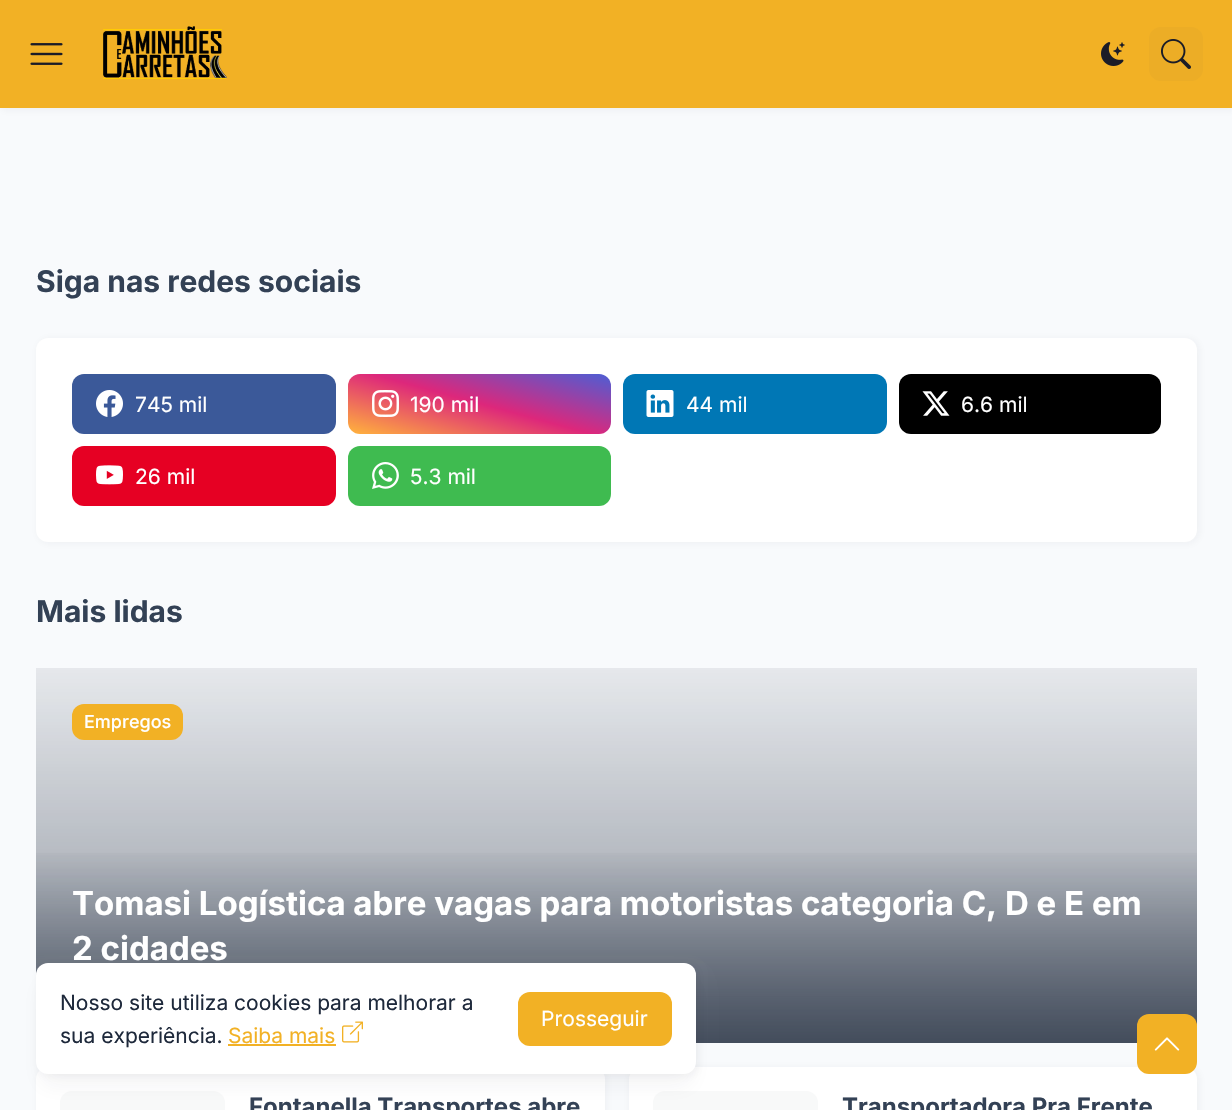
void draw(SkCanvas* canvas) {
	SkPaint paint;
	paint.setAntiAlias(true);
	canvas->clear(0xfff8fafc);
	paint.setColor(0x0d1e293b);
	paint.setMaskFilter(SkMaskFilter::MakeBlur(kNormal_SkBlurStyle, 4));
	canvas->drawRect(SkRect::MakeXYWH(2, 2, 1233, 108), paint);
	paint.setMaskFilter(nullptr);
	paint.setColor(0xfff2b125);
	canvas->drawRect(SkRect::MakeXYWH(0, 0, 1232, 108), paint);
	canvas->drawImageRect(SkImages::DeferredFromEncodedData(SkData::MakeFromFileName("img1.png")), SkRect::MakeXYWH(30, 43, 33, 22), SkSamplingOptions());
	canvas->drawImageRect(SkImages::DeferredFromEncodedData(SkData::MakeFromFileName("img2.png")), SkRect::MakeXYWH(103, 26, 124, 53), SkSamplingOptions());
	canvas->drawImageRect(SkImages::DeferredFromEncodedData(SkData::MakeFromFileName("img3.png")), SkRect::MakeXYWH(1101, 42, 24, 24), SkSamplingOptions());
	paint.setColor(0xffecad26);
	canvas->drawRoundRect(SkRect::MakeXYWH(1149, 27, 54, 54), 12, 12, paint);
	canvas->drawImageRect(SkImages::DeferredFromEncodedData(SkData::MakeFromFileName("img4.png")), SkRect::MakeXYWH(1161, 39, 30, 30), SkSamplingOptions());
	SkFont f1(fontMgr->matchFamilyStyle("Inter", SkFontStyle::Bold()), 30);
	f1.setSubpixel(true);
	paint.setColor(0xff334155);
	canvas->drawString("Siga nas redes sociais", 36, 292, f1, paint);
	paint.setColor(0x0d1e293b);
	paint.setMaskFilter(SkMaskFilter::MakeBlur(kNormal_SkBlurStyle, 4));
	canvas->drawRoundRect(SkRect::MakeXYWH(38, 339, 1161, 204), 12, 12, paint);
	paint.setMaskFilter(nullptr);
	paint.setColor(0xffffffff);
	canvas->drawRoundRect(SkRect::MakeXYWH(36, 338, 1161, 204), 12, 12, paint);
	paint.setColor(0xff3b5999);
	canvas->drawRoundRect(SkRect::MakeXYWH(72, 374, 264, 60), 12, 12, paint);
	canvas->drawImageRect(SkImages::DeferredFromEncodedData(SkData::MakeFromFileName("img5.png")), SkRect::MakeXYWH(96, 390, 27, 27), SkSamplingOptions());
	SkFont f2(fontMgr->matchFamilyStyle("Inter", SkFontStyle::Normal()), 21);
	f2.setSubpixel(true);
	paint.setColor(0xffffffff);
	canvas->drawString("745 mil", 135, 412, f2, paint);
	{
		const SkColor colors[] = {0xffffb13d, 0xffdd277b, 0xff4d5ed4};
		const float stops[] = {0, 0.5, 1};
		const SkPoint ends[] = {{463, 464}, {496, 343}};
		paint.setShader(SkGradientShader::MakeLinear(ends, colors, stops, 3, SkTileMode::kClamp));
		paint.setAlpha(255);
	}
	canvas->drawRoundRect(SkRect::MakeXYWH(348, 374, 263, 60), 12, 12, paint);
	canvas->drawImageRect(SkImages::DeferredFromEncodedData(SkData::MakeFromFileName("img6.png")), SkRect::MakeXYWH(372, 390, 27, 27), SkSamplingOptions());
	paint.setShader(nullptr);
	paint.setColor(0xffffffff);
	canvas->drawString("190 mil", 410, 412, f2, paint);
	paint.setColor(0xff0077b5);
	canvas->drawRoundRect(SkRect::MakeXYWH(623, 374, 264, 60), 12, 12, paint);
	canvas->drawImageRect(SkImages::DeferredFromEncodedData(SkData::MakeFromFileName("img7.png")), SkRect::MakeXYWH(646, 390, 28, 27), SkSamplingOptions());
	paint.setColor(0xffffffff);
	canvas->drawString("44 mil", 686, 412, f2, paint);
	paint.setColor(0xff000000);
	canvas->drawRoundRect(SkRect::MakeXYWH(899, 374, 262, 60), 12, 12, paint);
	canvas->drawImageRect(SkImages::DeferredFromEncodedData(SkData::MakeFromFileName("img8.png")), SkRect::MakeXYWH(922, 391, 28, 25), SkSamplingOptions());
	paint.setColor(0xffffffff);
	canvas->drawString("6.6 mil", 961, 412, f2, paint);
	paint.setColor(0xffe60023);
	canvas->drawRoundRect(SkRect::MakeXYWH(72, 446, 264, 60), 12, 12, paint);
	canvas->drawImageRect(SkImages::DeferredFromEncodedData(SkData::MakeFromFileName("img9.png")), SkRect::MakeXYWH(96, 465, 27, 20), SkSamplingOptions());
	paint.setColor(0xffffffff);
	canvas->drawString("26 mil", 135, 484, f2, paint);
	paint.setColor(0xff3fbb50);
	canvas->drawRoundRect(SkRect::MakeXYWH(348, 446, 263, 60), 12, 12, paint);
	canvas->drawImageRect(SkImages::DeferredFromEncodedData(SkData::MakeFromFileName("img10.png")), SkRect::MakeXYWH(372, 462, 27, 27), SkSamplingOptions());
	paint.setColor(0xffffffff);
	canvas->drawString("5.3 mil", 410, 484, f2, paint);
	paint.setColor(0xff334155);
	canvas->drawString("Mais lidas", 36, 622, f1, paint);
	paint.setColor(0x081e293b);
	canvas->drawRect(SkRect::MakeXYWH(36, 668, 1161, 375), paint);
	{
		const SkColor colors[] = {0x801e293b, 0x0d1e293b};
		const float stops[] = {0, 1};
		const SkPoint ends[] = {{617, 1043}, {617, 668}};
		paint.setShader(SkGradientShader::MakeLinear(ends, colors, stops, 2, SkTileMode::kClamp));
		paint.setAlpha(255);
	}
	canvas->drawRect(SkRect::MakeXYWH(36, 668, 1161, 375), paint);
	paint.setShader(nullptr);
	paint.setColor(0xfff2b125);
	canvas->drawRoundRect(SkRect::MakeXYWH(72, 704, 111, 36), 12, 12, paint);
	SkFont f3(fontMgr->matchFamilyStyle("Inter", SkFontStyle(500, SkFontStyle::kNormal_Width, SkFontStyle::kUpright_Slant)), 18);
	f3.setSubpixel(true);
	paint.setColor(0xffffffff);
	canvas->drawString("Empregos", 84, 728, f3, paint);
	{
		const SkColor colors[] = {0xa61e293b, 0x001e293b};
		const float stops[] = {0, 1};
		const SkPoint ends[] = {{617, 1043}, {617, 846}};
		paint.setShader(SkGradientShader::MakeLinear(ends, colors, stops, 2, SkTileMode::kClamp));
		paint.setAlpha(255);
	}
	canvas->drawRect(SkRect::MakeXYWH(36, 853, 1161, 190), paint);
	SkFont f4(fontMgr->matchFamilyStyle("Inter", SkFontStyle::Bold()), 33);
	f4.setSubpixel(true);
	paint.setShader(nullptr);
	paint.setColor(0xffffffff);
	canvas->drawString("Tomasi Logística abre vagas para motoristas categoria C, D e E em", 72, 915, f4, paint);
	canvas->drawString("2 cidades", 72, 960, f4, paint);
	paint.setColor(0x0d1e293b);
	paint.setMaskFilter(SkMaskFilter::MakeBlur(kNormal_SkBlurStyle, 4));
	canvas->drawRoundRect(SkRect::MakeXYWH(38, 1068, 568, 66), 12, 12, paint);
	paint.setMaskFilter(nullptr);
	paint.setColor(0xffffffff);
	canvas->drawRoundRect(SkRect::MakeXYWH(36, 1067, 569, 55), 12, 12, paint);
	paint.setColor(0xfff8f9f9);
	canvas->drawRoundRect(SkRect::MakeXYWH(60, 1091, 165, 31), 12, 12, paint);
	SkFont f5(fontMgr->matchFamilyStyle("Inter", SkFontStyle::Bold()), 24);
	f5.setSubpixel(true);
	paint.setColor(0xff334155);
	canvas->drawString("Fontanella Transportes abre", 249, 1115, f5, paint);
	paint.setColor(0x0d1e293b);
	paint.setMaskFilter(SkMaskFilter::MakeBlur(kNormal_SkBlurStyle, 4));
	canvas->drawRoundRect(SkRect::MakeXYWH(630, 1068, 569, 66), 12, 12, paint);
	paint.setMaskFilter(nullptr);
	paint.setColor(0xffffffff);
	canvas->drawRoundRect(SkRect::MakeXYWH(629, 1067, 568, 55), 12, 12, paint);
	paint.setColor(0xfff8f9f9);
	canvas->drawRoundRect(SkRect::MakeXYWH(653, 1091, 165, 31), 12, 12, paint);
	paint.setColor(0xff334155);
	canvas->drawString("Transportadora Pra Frente", 842, 1115, f5, paint);
	paint.setColor(0x0d1e293b);
	paint.setMaskFilter(SkMaskFilter::MakeBlur(kNormal_SkBlurStyle, 11));
	canvas->drawRoundRect(SkRect::MakeXYWH(41, 983, 651, 102), 8, 8, paint);
	paint.setMaskFilter(nullptr);
	paint.setMaskFilter(SkMaskFilter::MakeBlur(kNormal_SkBlurStyle, 4));
	canvas->drawRoundRect(SkRect::MakeXYWH(38, 965, 660, 111), 12, 12, paint);
	paint.setMaskFilter(nullptr);
	paint.setColor(0xffffffff);
	canvas->drawRoundRect(SkRect::MakeXYWH(36, 963, 660, 111), 12, 12, paint);
	paint.setColor(0xff1e293b);
	canvas->drawString("Nosso site utiliza cookies para melhorar a", 60, 1010, f2, paint);
	canvas->drawString("sua experiência.", 60, 1043, f2, paint);
	paint.setColor(0xfff2b125);
	canvas->drawString("Saiba mais", 228, 1043, f2, paint);
	canvas->drawRect(SkRect::MakeXYWH(228, 1044, 108, 2), paint);
	canvas->drawImageRect(SkImages::DeferredFromEncodedData(SkData::MakeFromFileName("img11.png")), SkRect::MakeXYWH(342, 1021, 21, 22), SkSamplingOptions());
	canvas->drawRoundRect(SkRect::MakeXYWH(518, 992, 154, 54), 12, 12, paint);
	paint.setColor(0xffffffff);
	canvas->drawString("Prosseguir", 541, 1026, f2, paint);
	paint.setColor(0xfff2b125);
	canvas->drawRoundRect(SkRect::MakeXYWH(1137, 1014, 60, 60), 12, 12, paint);
	canvas->drawImageRect(SkImages::DeferredFromEncodedData(SkData::MakeFromFileName("img12.png")), SkRect::MakeXYWH(1154, 1037, 26, 14), SkSamplingOptions());
}
